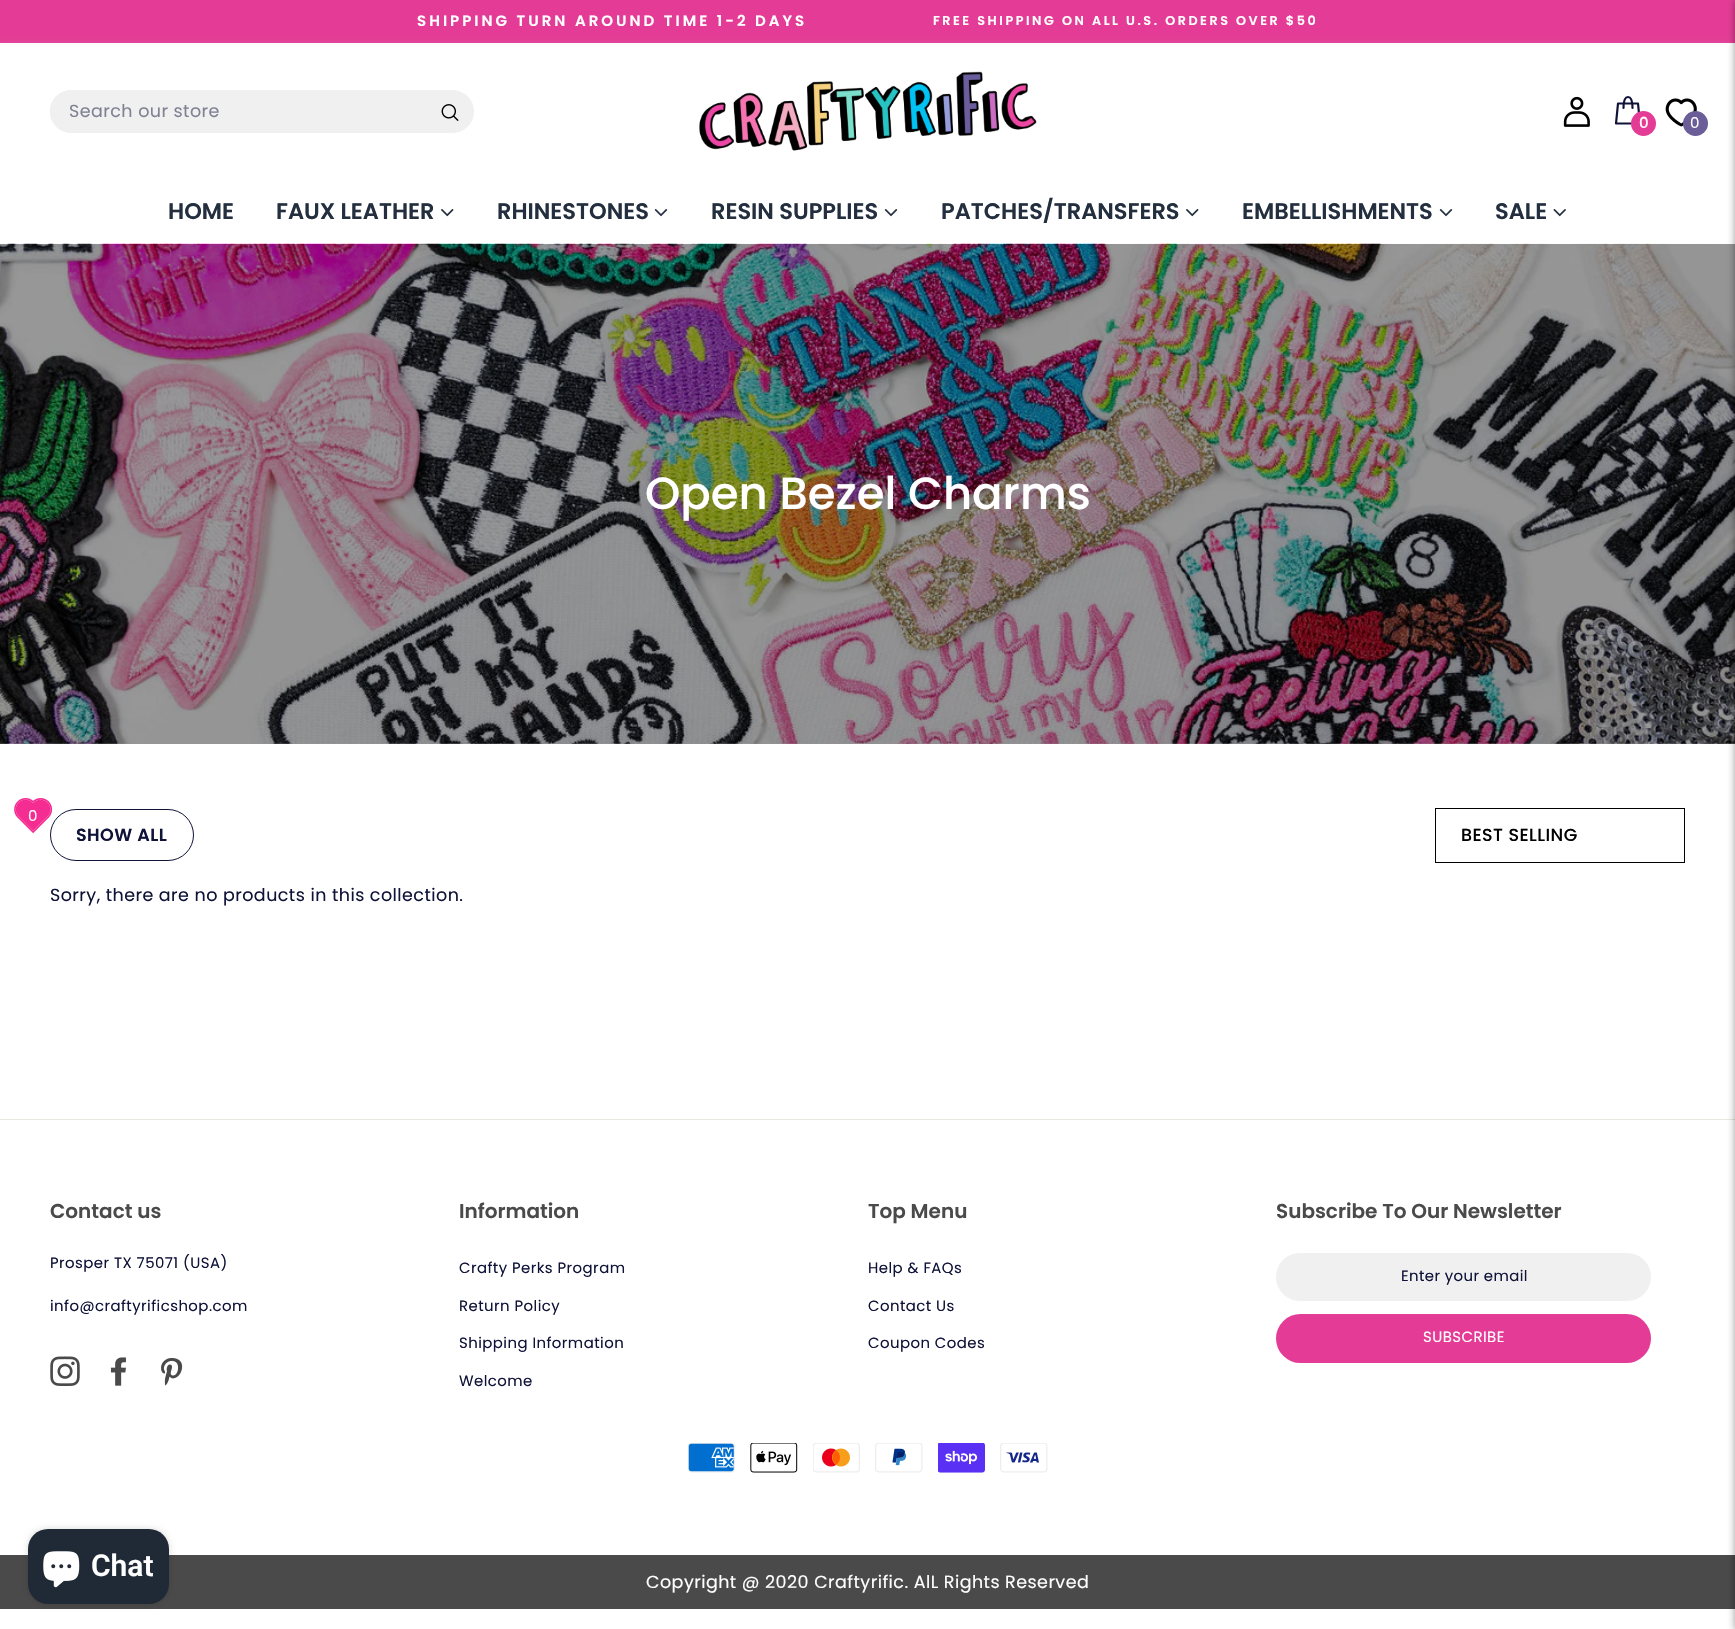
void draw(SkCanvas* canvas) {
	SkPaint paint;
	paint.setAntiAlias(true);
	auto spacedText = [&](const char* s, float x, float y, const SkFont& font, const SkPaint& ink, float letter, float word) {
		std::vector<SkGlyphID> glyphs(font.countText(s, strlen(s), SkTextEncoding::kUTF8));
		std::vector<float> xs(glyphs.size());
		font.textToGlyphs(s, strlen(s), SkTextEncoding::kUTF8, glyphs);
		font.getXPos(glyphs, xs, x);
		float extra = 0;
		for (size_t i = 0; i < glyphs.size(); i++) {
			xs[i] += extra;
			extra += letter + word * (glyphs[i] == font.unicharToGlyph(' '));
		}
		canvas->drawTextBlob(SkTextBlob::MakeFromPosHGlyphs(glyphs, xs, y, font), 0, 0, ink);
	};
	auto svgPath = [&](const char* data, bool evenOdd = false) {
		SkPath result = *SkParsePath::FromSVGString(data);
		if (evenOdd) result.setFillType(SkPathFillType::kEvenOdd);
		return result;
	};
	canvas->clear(0xffffffff);
	paint.setStroke(true);
	paint.setStrokeWidth(1);
	paint.setColor(0xff0f1338);
	canvas->drawRoundRect(SkRect::MakeXYWH(50.5, 809.5, 143, 51), 25.5, 25.5, paint);
	canvas->drawImageRect(SkImages::DeferredFromEncodedData(SkData::MakeFromFileName("img1.png")), SkRect::MakeXYWH(14, 798, 39, 36), SkSamplingOptions());
	SkFont f1(fontMgr->matchFamilyStyle("Poppins", SkFontStyle::Normal()), 15);
	f1.setSubpixel(true);
	paint.setStroke(false);
	paint.setColor(0xffffffff);
	spacedText("0", 28, 821, f1, paint, 0.45, 0);
	paint.setColor(0xffe43c96);
	canvas->drawRect(SkRect::MakeXYWH(0, 0, 1735, 43), paint);
	paint.setColor(0xffe1e1e1);
	paint.setMaskFilter(SkMaskFilter::MakeBlur(kNormal_SkBlurStyle, 5));
	canvas->drawRect(SkRect::MakeXYWH(0, 51, 1735, 202), paint);
	paint.setMaskFilter(nullptr);
	paint.setColor(0xffffffff);
	canvas->drawRect(SkRect::MakeXYWH(0, 44, 1735, 200), paint);
	canvas->drawImageRect(SkImages::DeferredFromEncodedData(SkData::MakeFromFileName("img9.png")), SkRect::MakeXYWH(0, 243, 1735, 501), SkSamplingOptions());
	paint.setColor(0x66000000);
	canvas->drawRect(SkRect::MakeXYWH(0, 244, 1735, 500), paint);
	paint.setColor(0xffe8e8e1);
	canvas->drawRect(SkRect::MakeXYWH(0, 1119, 1735, 1), paint);
	paint.setColor(0xff4a4a4a);
	canvas->drawRect(SkRect::MakeXYWH(0, 1555, 1735, 54), paint);
	paint.setColor(0x80000000);
	paint.setMaskFilter(SkMaskFilter::MakeBlur(kNormal_SkBlurStyle, 4.5));
	canvas->drawRect(SkRect::MakeXYWH(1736, 0, 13, 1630), paint);
	paint.setMaskFilter(nullptr);
	SkFont f2(fontMgr->matchFamilyStyle("Poppins", SkFontStyle(600, SkFontStyle::kNormal_Width, SkFontStyle::kUpright_Slant)), 15);
	f2.setSubpixel(true);
	paint.setColor(0xffffffff);
	spacedText("SHIPPING TURN AROUND TIME 1-2 DAYS", 417, 26, f2, paint, 3, 0);
	SkFont f3(fontMgr->matchFamilyStyle("Poppins", SkFontStyle(600, SkFontStyle::kNormal_Width, SkFontStyle::kUpright_Slant)), 12.75);
	f3.setSubpixel(true);
	spacedText("FREE SHIPPING ON ALL U.S. ORDERS OVER $50", 933, 25, f3, paint, 2.55, 0);
	paint.setColor(0xfff0f0f0);
	canvas->drawRoundRect(SkRect::MakeXYWH(50, 90, 424, 43), 21.5, 21.5, paint);
	canvas->drawPath(svgPath("M71.5 90H426V133H71.5C59.5 133 50 123.5 50 111.5C50 99.5 59.5 90 71.5 90Z"), paint);
	SkFont f4(fontMgr->matchFamilyStyle("Poppins", SkFontStyle::Normal()), 17.5);
	f4.setSubpixel(true);
	paint.setColor(0xff808294);
	spacedText("Search our store", 69, 117, f4, paint, 0.45, 0);
	canvas->drawImageRect(SkImages::DeferredFromEncodedData(SkData::MakeFromFileName("img2.png")), SkRect::MakeXYWH(441, 104, 18, 17), SkSamplingOptions());
	canvas->drawImageRect(SkImages::DeferredFromEncodedData(SkData::MakeFromFileName("img3.png")), SkRect::MakeXYWH(699, 71, 338, 80), SkSamplingOptions());
	canvas->drawImageRect(SkImages::DeferredFromEncodedData(SkData::MakeFromFileName("img4.png")), SkRect::MakeXYWH(1563, 96, 27, 31), SkSamplingOptions());
	paint.setStroke(true);
	paint.setStrokeWidth(2.2);
	paint.setStrokeCap(SkPaint::kRound_Cap);
	paint.setStrokeJoin(SkPaint::kRound_Join);
	paint.setColor(0xff0f1338);
	canvas->drawPath(svgPath("M1623.5 108C1623.5 99.5 1625.5 97 1628 97C1630.5 97 1632.5 99.5 1632.5 108M1618 103.5H1638L1640 123.5H1616Z"), paint);
	paint.setStroke(false);
	paint.setColor(0xffe43c96);
	canvas->drawCircle(1643.5, 123.5, 12.5, paint);
	SkFont f5(fontMgr->matchFamilyStyle("Poppins", SkFontStyle(500, SkFontStyle::kNormal_Width, SkFontStyle::kUpright_Slant)), 15);
	f5.setSubpixel(true);
	paint.setColor(0xffffffff);
	canvas->drawString("0", 1639, 128, f5, paint);
	canvas->drawImageRect(SkImages::DeferredFromEncodedData(SkData::MakeFromFileName("img5.png")), SkRect::MakeXYWH(1665, 98, 32, 29), SkSamplingOptions());
	paint.setColor(0xff6a5d98);
	canvas->drawCircle(1695.5, 123.5, 12.5, paint);
	paint.setColor(0xffffffff);
	spacedText("0", 1690, 128, f1, paint, 0.45, 0);
	SkFont f6(fontMgr->matchFamilyStyle("Poppins", SkFontStyle(600, SkFontStyle::kNormal_Width, SkFontStyle::kUpright_Slant)), 22.5);
	f6.setSubpixel(true);
	paint.setColor(0xff232f3e);
	canvas->drawString("HOME", 168, 219, f6, paint);
	canvas->drawString("FAUX LEATHER", 276, 219, f6, paint);
	canvas->drawImageRect(SkImages::DeferredFromEncodedData(SkData::MakeFromFileName("img6.png")), SkRect::MakeXYWH(441, 209, 13, 8), SkSamplingOptions());
	canvas->drawString("RHINESTONES", 497, 219, f6, paint);
	canvas->drawImageRect(SkImages::DeferredFromEncodedData(SkData::MakeFromFileName("img7.png")), SkRect::MakeXYWH(654, 209, 14, 8), SkSamplingOptions());
	canvas->drawString("RESIN SUPPLIES", 711, 219, f6, paint);
	canvas->drawImageRect(SkImages::DeferredFromEncodedData(SkData::MakeFromFileName("img7.png")), SkRect::MakeXYWH(884, 209, 14, 8), SkSamplingOptions());
	canvas->drawString("PATCHES/TRANSFERS", 941, 219, f6, paint);
	canvas->drawImageRect(SkImages::DeferredFromEncodedData(SkData::MakeFromFileName("img6.png")), SkRect::MakeXYWH(1186, 209, 13, 8), SkSamplingOptions());
	canvas->drawString("EMBELLISHMENTS", 1242, 219, f6, paint);
	canvas->drawImageRect(SkImages::DeferredFromEncodedData(SkData::MakeFromFileName("img7.png")), SkRect::MakeXYWH(1439, 209, 14, 8), SkSamplingOptions());
	canvas->drawString("SALE", 1495, 219, f6, paint);
	canvas->drawImageRect(SkImages::DeferredFromEncodedData(SkData::MakeFromFileName("img8.png")), SkRect::MakeXYWH(1553, 209, 13, 8), SkSamplingOptions());
	SkFont f7(fontMgr->matchFamilyStyle("Poppins", SkFontStyle(500, SkFontStyle::kNormal_Width, SkFontStyle::kUpright_Slant)), 45);
	f7.setSubpixel(true);
	paint.setColor(0xffffffff);
	canvas->drawString("Open Bezel Charms", 645, 509, f7, paint);
	SkFont f8(fontMgr->matchFamilyStyle("Poppins", SkFontStyle(600, SkFontStyle::kNormal_Width, SkFontStyle::kUpright_Slant)), 17.5);
	f8.setSubpixel(true);
	paint.setColor(0xff0f1338);
	spacedText("SHOW ALL", 76, 841, f8, paint, 0.45, 0);
	paint.setStroke(true);
	paint.setStrokeWidth(1);
	paint.setStrokeCap(SkPaint::kButt_Cap);
	paint.setStrokeJoin(SkPaint::kMiter_Join);
	paint.setColor(0xff000000);
	canvas->drawRect(SkRect::MakeXYWH(1435.5, 808.5, 249, 54), paint);
	SkFont f9(fontMgr->matchFamilyStyle("Poppins", SkFontStyle(500, SkFontStyle::kNormal_Width, SkFontStyle::kUpright_Slant)), 17.5);
	f9.setSubpixel(true);
	paint.setStroke(false);
	spacedText("BEST SELLING", 1461, 841, f9, paint, 0.45, 0);
	paint.setColor(0xff0f1338);
	spacedText("Sorry, there are no products in this collection.", 50, 901, f4, paint, 0.45, 0);
	SkFont f10(fontMgr->matchFamilyStyle("Poppins", SkFontStyle(600, SkFontStyle::kNormal_Width, SkFontStyle::kUpright_Slant)), 20);
	f10.setSubpixel(true);
	paint.setColor(0xff4a4a4a);
	canvas->drawString("Contact us", 50, 1218, f10, paint);
	SkFont f11(fontMgr->matchFamilyStyle("Poppins", SkFontStyle::Normal()), 14.9);
	f11.setSubpixel(true);
	paint.setColor(0xff0f1338);
	spacedText("Prosper TX 75071 (USA)", 50, 1268, f11, paint, 0.45, 0);
	spacedText("info@craftyrificshop.com", 50, 1311, f11, paint, 0.45, 0);
	canvas->drawImageRect(SkImages::DeferredFromEncodedData(SkData::MakeFromFileName("img10.png")), SkRect::MakeXYWH(50, 1356, 30, 30), SkSamplingOptions());
	canvas->drawImageRect(SkImages::DeferredFromEncodedData(SkData::MakeFromFileName("img11.png")), SkRect::MakeXYWH(110, 1357, 16, 29), SkSamplingOptions());
	canvas->drawImageRect(SkImages::DeferredFromEncodedData(SkData::MakeFromFileName("img12.png")), SkRect::MakeXYWH(161, 1357, 22, 29), SkSamplingOptions());
	paint.setColor(0xff4a4a4a);
	canvas->drawString("Information", 459, 1218, f10, paint);
	paint.setColor(0xff0f1338);
	spacedText("Crafty Perks Program", 459, 1273, f11, paint, 0.45, 0);
	spacedText("Return Policy", 459, 1311, f11, paint, 0.45, 0);
	spacedText("Shipping Information", 459, 1348, f11, paint, 0.45, 0);
	spacedText("Welcome", 459, 1386, f11, paint, 0.45, 0);
	paint.setColor(0xff4a4a4a);
	canvas->drawString("Top Menu", 868, 1218, f10, paint);
	paint.setColor(0xff0f1338);
	spacedText("Help & FAQs", 868, 1273, f11, paint, 0.45, 0);
	spacedText("Contact Us", 868, 1311, f11, paint, 0.45, 0);
	spacedText("Coupon Codes", 868, 1348, f11, paint, 0.45, 0);
	paint.setColor(0xff4a4a4a);
	canvas->drawString("Subscribe To Our Newsletter", 1276, 1218, f10, paint);
	paint.setColor(0xfff0f0f0);
	canvas->drawRoundRect(SkRect::MakeXYWH(1276, 1253, 375, 48), 24, 24, paint);
	paint.setColor(0xff0f1338);
	spacedText("Enter your email", 1401, 1281, f11, paint, 0.4, 0);
	paint.setColor(0xffe43c96);
	canvas->drawRoundRect(SkRect::MakeXYWH(1276, 1314, 375, 49), 24.5, 24.5, paint);
	paint.setColor(0xffffffff);
	spacedText("SUBSCRIBE", 1423, 1342, f11, paint, 0.45, 0);
	canvas->drawImageRect(SkImages::DeferredFromEncodedData(SkData::MakeFromFileName("img13.png")), SkRect::MakeXYWH(688, 1443, 47, 30), SkSamplingOptions());
	canvas->drawImageRect(SkImages::DeferredFromEncodedData(SkData::MakeFromFileName("img14.png")), SkRect::MakeXYWH(750, 1443, 48, 30), SkSamplingOptions());
	canvas->drawImageRect(SkImages::DeferredFromEncodedData(SkData::MakeFromFileName("img15.png")), SkRect::MakeXYWH(813, 1443, 47, 30), SkSamplingOptions());
	canvas->drawImageRect(SkImages::DeferredFromEncodedData(SkData::MakeFromFileName("img16.png")), SkRect::MakeXYWH(875, 1443, 48, 30), SkSamplingOptions());
	canvas->drawImageRect(SkImages::DeferredFromEncodedData(SkData::MakeFromFileName("img17.png")), SkRect::MakeXYWH(938, 1443, 47, 30), SkSamplingOptions());
	canvas->drawImageRect(SkImages::DeferredFromEncodedData(SkData::MakeFromFileName("img18.png")), SkRect::MakeXYWH(1000, 1443, 48, 30), SkSamplingOptions());
	spacedText("Copyright @ 2020 Craftyrific. AlL Rights Reserved", 646, 1588, f4, paint, 0.45, 0);
	paint.setColor(0x26000000);
	paint.setMaskFilter(SkMaskFilter::MakeBlur(kNormal_SkBlurStyle, 3));
	canvas->drawRoundRect(SkRect::MakeXYWH(28, 1529, 141, 75), 20, 20, paint);
	paint.setMaskFilter(nullptr);
	paint.setColor(0xff202a36);
	canvas->drawRoundRect(SkRect::MakeXYWH(28, 1529, 141, 75), 20, 20, paint);
	canvas->drawImageRect(SkImages::DeferredFromEncodedData(SkData::MakeFromFileName("img19.png")), SkRect::MakeXYWH(43, 1551, 37, 37), SkSamplingOptions());
	SkFont f12(fontMgr->matchFamilyStyle("Roboto", SkFontStyle(600, SkFontStyle::kNormal_Width, SkFontStyle::kUpright_Slant)), 30);
	f12.setSubpixel(true);
	paint.setColor(0xffffffff);
	canvas->drawString("Chat", 91, 1576, f12, paint);
}
